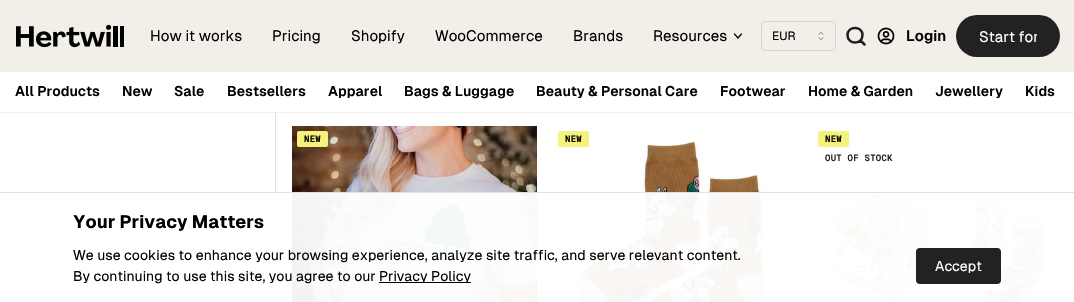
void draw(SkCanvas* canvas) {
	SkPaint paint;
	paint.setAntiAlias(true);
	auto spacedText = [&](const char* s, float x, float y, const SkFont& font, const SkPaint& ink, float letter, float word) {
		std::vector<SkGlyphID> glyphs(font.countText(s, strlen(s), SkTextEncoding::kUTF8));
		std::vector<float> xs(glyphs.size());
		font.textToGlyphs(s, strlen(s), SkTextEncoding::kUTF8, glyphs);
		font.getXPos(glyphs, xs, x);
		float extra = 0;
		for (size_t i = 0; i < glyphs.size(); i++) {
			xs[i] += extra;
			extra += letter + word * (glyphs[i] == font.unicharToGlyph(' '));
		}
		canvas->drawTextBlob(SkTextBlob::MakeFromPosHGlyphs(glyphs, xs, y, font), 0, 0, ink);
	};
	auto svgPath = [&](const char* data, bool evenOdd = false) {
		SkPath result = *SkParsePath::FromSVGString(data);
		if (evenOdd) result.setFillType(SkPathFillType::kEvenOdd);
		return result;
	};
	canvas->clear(0xffffffff);
	paint.setColor(0xfff2efe9);
	canvas->drawRect(SkRect::MakeXYWH(0, 0, 1074, 72), paint);
	canvas->drawImageRect(SkImages::DeferredFromEncodedData(SkData::MakeFromFileName("img1.png")), SkRect::MakeXYWH(16, 24, 108, 24), SkSamplingOptions());
	SkFont f1(fontMgr->matchFamilyStyle("Geist", SkFontStyle::Normal()), 15);
	f1.setSubpixel(true);
	paint.setColor(0xff000000);
	canvas->drawString("How it works", 150, 41, f1, paint);
	canvas->drawString("Pricing", 272, 41, f1, paint);
	canvas->drawString("Shopify", 351, 41, f1, paint);
	canvas->drawString("WooCommerce", 435, 41, f1, paint);
	canvas->drawString("Brands", 573, 41, f1, paint);
	canvas->drawString("Resources", 653, 41, f1, paint);
	paint.setStroke(true);
	paint.setStrokeWidth(1.2);
	paint.setStrokeCap(SkPaint::kRound_Cap);
	paint.setStrokeJoin(SkPaint::kRound_Join);
	canvas->drawPath(svgPath("M734.5 34L738 38L741.5 34"), paint);
	paint.setStrokeWidth(1);
	paint.setStrokeCap(SkPaint::kButt_Cap);
	paint.setStrokeJoin(SkPaint::kMiter_Join);
	paint.setColor(0xffced4da);
	canvas->drawRoundRect(SkRect::MakeXYWH(761.5, 21.5, 74, 29), 3.5, 3.5, paint);
	SkFont f2(fontMgr->matchFamilyStyle("Geist", SkFontStyle::Normal()), 12);
	f2.setSubpixel(true);
	paint.setStroke(false);
	paint.setColor(0xff000000);
	canvas->drawString("EUR", 772, 40, f2, paint);
	canvas->drawImageRect(SkImages::DeferredFromEncodedData(SkData::MakeFromFileName("img2.png")), SkRect::MakeXYWH(818, 32, 6, 8), SkSamplingOptions());
	paint.setStroke(true);
	paint.setStrokeWidth(2.5);
	paint.setStrokeCap(SkPaint::kRound_Cap);
	paint.setStrokeJoin(SkPaint::kRound_Join);
	paint.setColor(0xff1e1e1e);
	canvas->drawPath(svgPath("M864.5 44.5L860.5 40.5M862.5 35C862.5 45 847.5 45 847.5 35C847.5 25.5 862.5 25.5 862.5 35Z"), paint);
	canvas->drawImageRect(SkImages::DeferredFromEncodedData(SkData::MakeFromFileName("img3.png")), SkRect::MakeXYWH(877, 27, 18, 18), SkSamplingOptions());
	SkFont f3(fontMgr->matchFamilyStyle("Geist", SkFontStyle(600, SkFontStyle::kNormal_Width, SkFontStyle::kUpright_Slant)), 15);
	f3.setSubpixel(true);
	paint.setStroke(false);
	paint.setColor(0xff000000);
	canvas->drawString("Login", 906, 41, f3, paint);
	paint.setColor(0xff222222);
	canvas->drawRoundRect(SkRect::MakeXYWH(956, 15, 104, 42), 21, 21, paint);
	canvas->save();
	canvas->clipRect(SkRect::MakeXYWH(979, 16, 58, 40));
	paint.setColor(0xffffffff);
	canvas->drawString("Start for", 979, 42, f1, paint);
	canvas->restore();
	paint.setColor(0xfff2efe9);
	canvas->drawRect(SkRect::MakeXYWH(0, 112, 1074, 1), paint);
	SkFont f4(fontMgr->matchFamilyStyle("Geist", SkFontStyle(600, SkFontStyle::kNormal_Width, SkFontStyle::kUpright_Slant)), 14);
	f4.setSubpixel(true);
	paint.setColor(0xff000000);
	canvas->drawString("All Products", 15, 96, f4, paint);
	canvas->drawString("New", 122, 96, f4, paint);
	canvas->drawString("Sale", 174, 96, f4, paint);
	canvas->drawString("Bestsellers", 227, 96, f4, paint);
	canvas->drawString("Apparel", 328, 96, f4, paint);
	canvas->drawString("Bags & Luggage", 404, 96, f4, paint);
	canvas->drawString("Beauty & Personal Care", 536, 96, f4, paint);
	canvas->drawString("Footwear", 720, 96, f4, paint);
	canvas->drawString("Home & Garden", 808, 96, f4, paint);
	canvas->drawString("Jewellery", 935, 96, f4, paint);
	canvas->drawString("Kids", 1025, 96, f4, paint);
	paint.setColor(0xffdee2e6);
	canvas->drawRect(SkRect::MakeXYWH(275, 113, 1, 189), paint);
	canvas->drawImageRect(SkImages::DeferredFromEncodedData(SkData::MakeFromFileName("img4.png")), SkRect::MakeXYWH(292, 126, 245, 176), SkSamplingOptions());
	paint.setColor(0xfff6f27e);
	canvas->drawRoundRect(SkRect::MakeXYWH(297, 131, 31, 16), 2, 2, paint);
	SkFont f5(fontMgr->matchFamilyStyle("Geist Mono", SkFontStyle::Bold()), 9);
	f5.setSubpixel(true);
	paint.setColor(0xff000000);
	spacedText("NEW", 304, 142, f5, paint, 0.25, 0);
	canvas->drawImageRect(SkImages::DeferredFromEncodedData(SkData::MakeFromFileName("img5.png")), SkRect::MakeXYWH(576, 141, 192, 161), SkSamplingOptions());
	paint.setColor(0xfff6f27e);
	canvas->drawRoundRect(SkRect::MakeXYWH(558, 131, 31, 16), 2, 2, paint);
	paint.setColor(0xff000000);
	spacedText("NEW", 565, 142, f5, paint, 0.25, 0);
	paint.setColor(0xfff6f27e);
	canvas->drawRoundRect(SkRect::MakeXYWH(818, 131, 31, 16), 2, 2, paint);
	paint.setColor(0xff000000);
	spacedText("NEW", 825, 142, f5, paint, 0.25, 0);
	paint.setColor(0xff222222);
	spacedText("OUT OF STOCK", 825, 161, f5, paint, 0.25, 0);
	canvas->drawImageRect(SkImages::DeferredFromEncodedData(SkData::MakeFromFileName("img6.png")), SkRect::MakeXYWH(821, 194, 227, 108), SkSamplingOptions());
	paint.setColor(0xf2ffffff);
	canvas->drawRect(SkRect::MakeXYWH(275, 193, 773, 109), paint);
	paint.setColor(0xffdee2e6);
	canvas->drawRect(SkRect::MakeXYWH(0, 192, 1074, 1), paint);
	SkFont f6(fontMgr->matchFamilyStyle("Geist", SkFontStyle::Bold()), 18);
	f6.setSubpixel(true);
	paint.setColor(0xff000000);
	canvas->drawString("Your Privacy Matters", 73, 228, f6, paint);
	SkFont f7(fontMgr->matchFamilyStyle("Geist", SkFontStyle::Normal()), 14);
	f7.setSubpixel(true);
	canvas->drawString("We use cookies to enhance your browsing experience, analyze site traffic, and serve relevant content.", 73, 260, f7, paint);
	canvas->drawString("By continuing to use this site, you agree to our", 73, 281, f7, paint);
	canvas->drawRect(SkRect::MakeXYWH(379, 282, 92, 1), paint);
	canvas->drawString("Privacy Policy", 379, 281, f7, paint);
	paint.setColor(0xff222222);
	canvas->drawRoundRect(SkRect::MakeXYWH(916, 248, 85, 36), 4, 4, paint);
	paint.setColor(0xffffffff);
	canvas->drawString("Accept", 935, 271, f7, paint);
}
